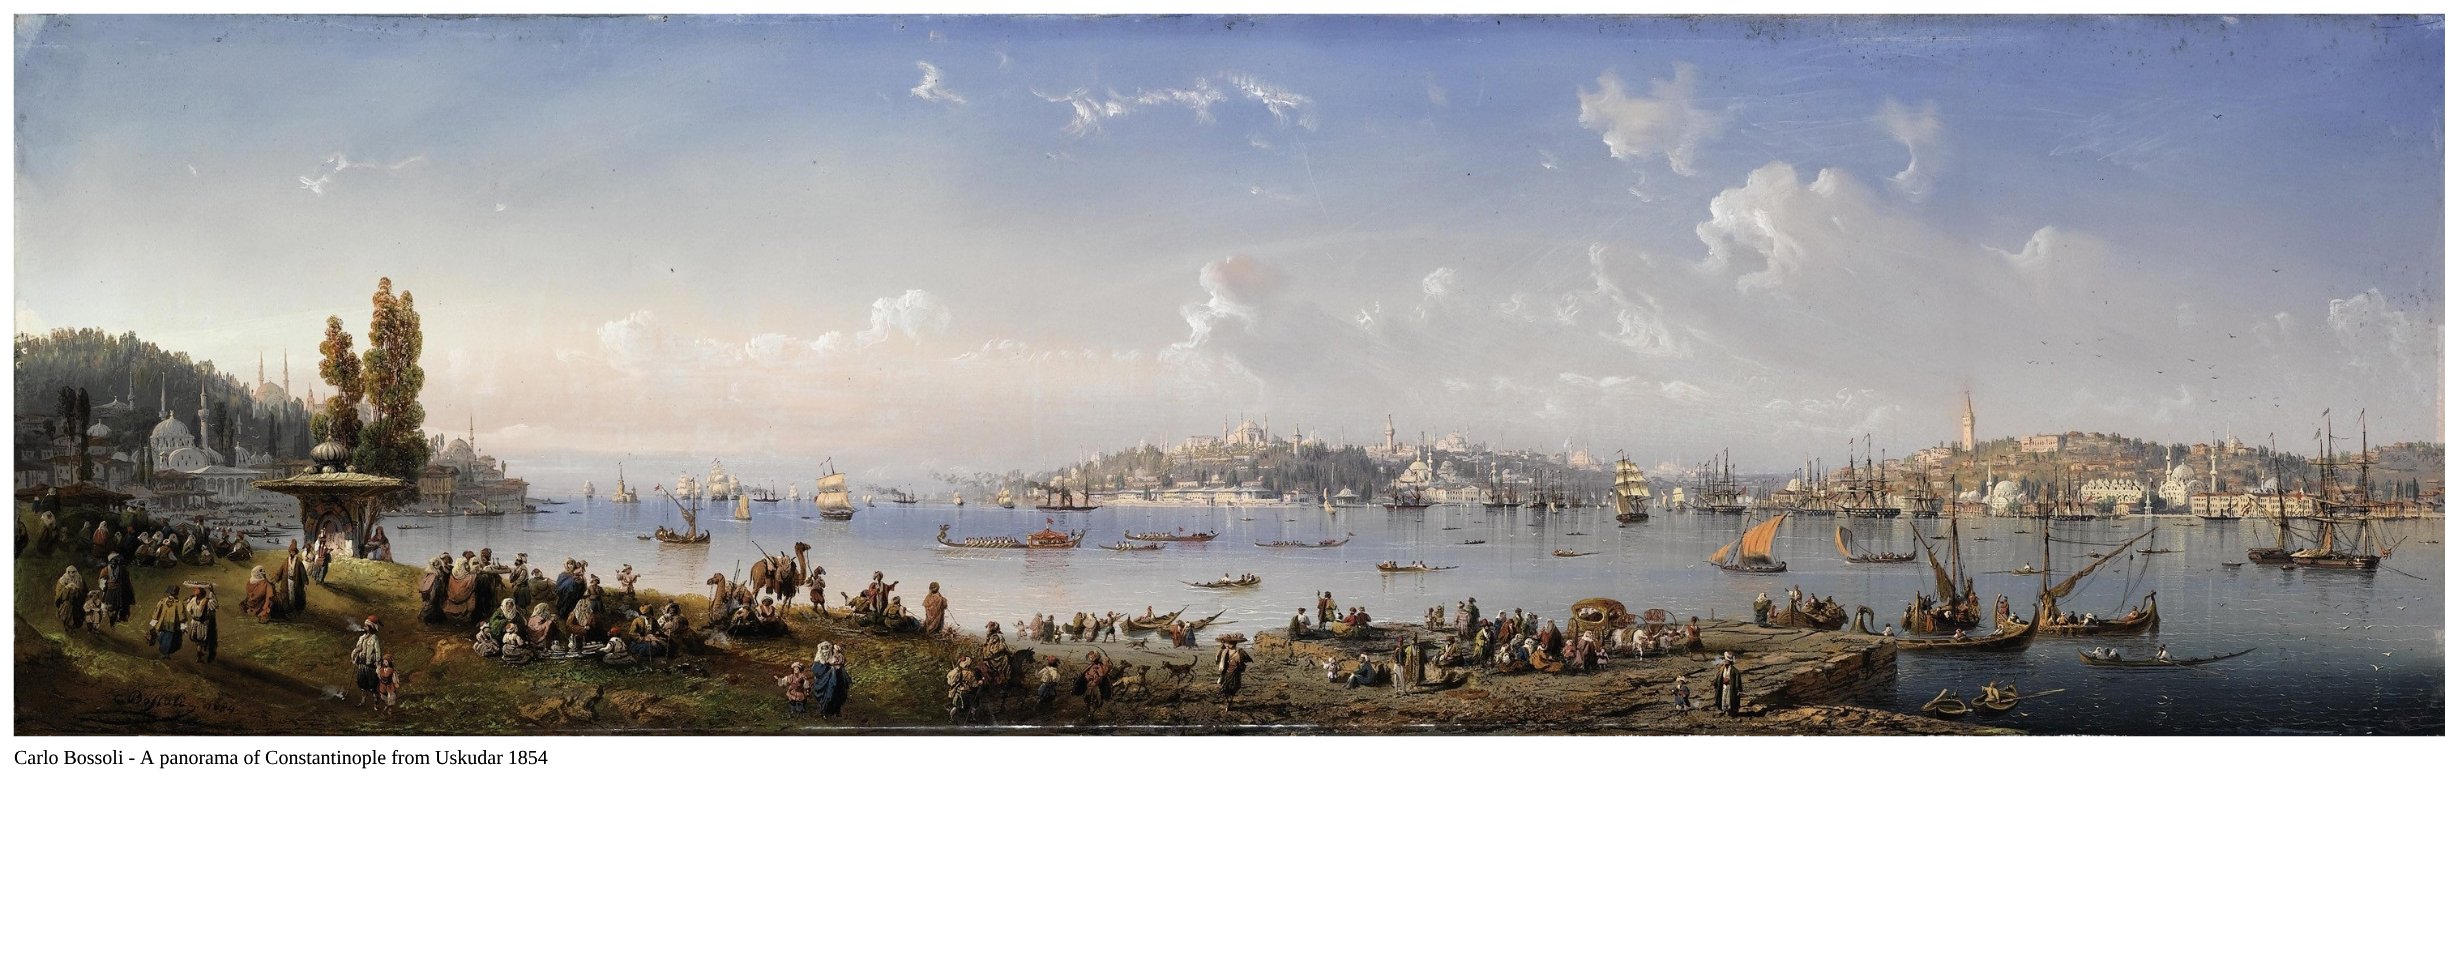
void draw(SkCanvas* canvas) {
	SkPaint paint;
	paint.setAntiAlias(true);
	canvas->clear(0xffffffff);
	canvas->drawImageRect(SkImages::DeferredFromEncodedData(SkData::MakeFromFileName("img1.png")), SkRect::MakeXYWH(13, 13, 2432, 724), SkSamplingOptions());
	SkFont f1(fontMgr->matchFamilyStyle("Liberation Serif", SkFontStyle::Normal()), 20);
	f1.setSubpixel(true);
	paint.setColor(0xff000000);
	canvas->drawString("Carlo Bossoli - A panorama of Constantinople from Uskudar 1854", 14, 764, f1, paint);
}
